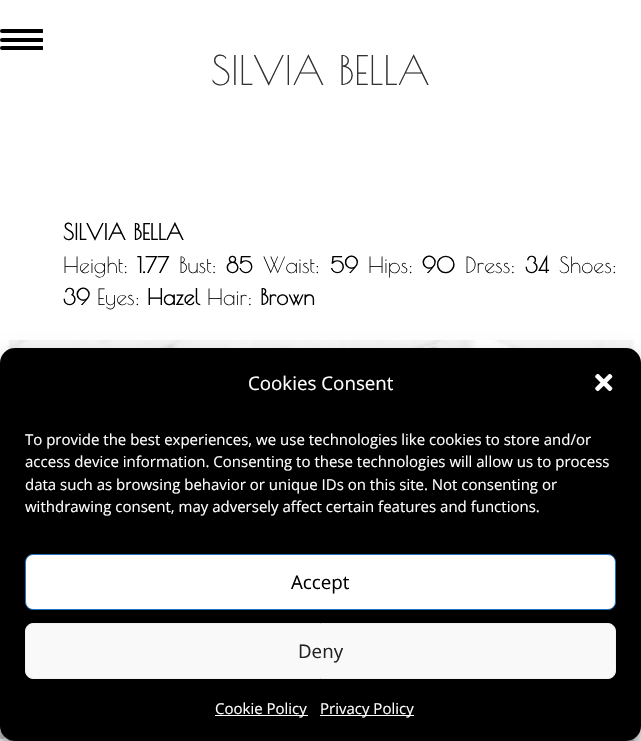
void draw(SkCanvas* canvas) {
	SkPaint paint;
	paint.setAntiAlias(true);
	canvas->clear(0xffffffff);
	canvas->save();
	canvas->clipRect(SkRect::MakeXYWH(0, 0, 43, 741));
	paint.setColor(0xff000000);
	canvas->drawRoundRect(SkRect::MakeXYWH(0, 38, 44, 4), 2, 2, paint);
	canvas->drawRoundRect(SkRect::MakeXYWH(0, 29, 44, 4), 2, 2, paint);
	canvas->drawRoundRect(SkRect::MakeXYWH(0, 46, 44, 4), 2, 2, paint);
	canvas->restore();
	paint.setColor(0xffcccccc);
	canvas->drawRoundRect(SkRect::MakeXYWH(-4, 731, 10, 8), 4, 4, paint);
	SkFont f1(fontMgr->matchFamilyStyle("Poiret One", SkFontStyle::Normal()), 40);
	f1.setSubpixel(true);
	paint.setColor(0xff333333);
	canvas->drawString("SILVIA BELLA", 211, 85, f1, paint);
	SkFont f2(fontMgr->matchFamilyStyle("Poiret One", SkFontStyle::Bold()), 22);
	f2.setSubpixel(true);
	paint.setColor(0xff000000);
	canvas->drawString("SILVIA BELLA", 63, 240, f2, paint);
	SkFont f3(fontMgr->matchFamilyStyle("Poiret One", SkFontStyle::Normal()), 22);
	f3.setSubpixel(true);
	canvas->drawString("Height:", 63, 273, f3, paint);
	canvas->drawString("1.77", 137, 273, f2, paint);
	canvas->drawString("Bust:", 179, 273, f3, paint);
	canvas->drawString("85", 226, 273, f2, paint);
	canvas->drawString("Waist:", 263, 273, f3, paint);
	canvas->drawString("59", 330, 273, f2, paint);
	canvas->drawString("Hips:", 368, 273, f3, paint);
	canvas->drawString("90", 422, 273, f2, paint);
	canvas->drawString("Dress:", 465, 273, f3, paint);
	canvas->drawString("34", 525, 273, f2, paint);
	canvas->drawString("Shoes:", 559, 273, f3, paint);
	canvas->drawString("39", 63, 305, f2, paint);
	canvas->drawString("Eyes:", 97, 305, f3, paint);
	canvas->drawString("Hazel", 147, 305, f2, paint);
	canvas->drawString("Hair:", 207, 305, f3, paint);
	canvas->drawString("Brown", 260, 305, f2, paint);
	canvas->drawImageRect(SkImages::DeferredFromEncodedData(SkData::MakeFromFileName("img1.png")), SkRect::MakeXYWH(8, 340, 626, 401), SkSamplingOptions());
	paint.setColor(0x3b000000);
	paint.setMaskFilter(SkMaskFilter::MakeBlur(kNormal_SkBlurStyle, 4));
	canvas->drawRoundRect(SkRect::MakeXYWH(0, 355, 641, 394), 15, 15, paint);
	paint.setMaskFilter(nullptr);
	paint.setColor(0x30000000);
	paint.setMaskFilter(SkMaskFilter::MakeBlur(kNormal_SkBlurStyle, 12.5));
	canvas->drawRoundRect(SkRect::MakeXYWH(0, 360, 641, 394), 15, 15, paint);
	paint.setMaskFilter(nullptr);
	paint.setColor(0xff000000);
	canvas->drawRoundRect(SkRect::MakeXYWH(0, 348, 641, 393), 15, 15, paint);
	SkFont f4(fontMgr->matchFamilyStyle("Open Sans", SkFontStyle::Normal()), 18.75);
	f4.setSubpixel(true);
	paint.setColor(0xffffffff);
	canvas->drawString("Cookies Consent", 248, 390, f4, paint);
	canvas->drawImageRect(SkImages::DeferredFromEncodedData(SkData::MakeFromFileName("img2.png")), SkRect::MakeXYWH(595, 373, 18, 19), SkSamplingOptions());
	SkFont f5(fontMgr->matchFamilyStyle("Open Sans", SkFontStyle::Normal()), 15);
	f5.setSubpixel(true);
	canvas->drawString("To provide the best experiences, we use technologies like cookies to store and/or", 25, 445, f5, paint);
	canvas->drawString("access device information. Consenting to these technologies will allow us to process", 25, 467, f5, paint);
	canvas->drawString("data such as browsing behavior or unique IDs on this site. Not consenting or", 25, 490, f5, paint);
	canvas->drawString("withdrawing consent, may adversely affect certain features and functions.", 25, 512, f5, paint);
	canvas->drawRoundRect(SkRect::MakeXYWH(25.5, 554.5, 590, 55), 7.5, 7.5, paint);
	paint.setStroke(true);
	paint.setStrokeWidth(1);
	paint.setColor(0xff1e73be);
	canvas->drawRoundRect(SkRect::MakeXYWH(25.5, 554.5, 590, 55), 7.5, 7.5, paint);
	paint.setStroke(false);
	paint.setColor(0xff000000);
	canvas->drawString("Accept", 291, 589, f4, paint);
	paint.setColor(0xfff9f9f9);
	canvas->drawRoundRect(SkRect::MakeXYWH(25.5, 623.5, 590, 55), 7.5, 7.5, paint);
	paint.setStroke(true);
	paint.setColor(0xfff2f2f2);
	canvas->drawRoundRect(SkRect::MakeXYWH(25.5, 623.5, 590, 55), 7.5, 7.5, paint);
	paint.setStroke(false);
	paint.setColor(0xff222222);
	canvas->drawString("Deny", 298, 658, f4, paint);
	paint.setColor(0xffffffff);
	canvas->drawRect(SkRect::MakeXYWH(215, 715, 93, 1), paint);
	canvas->drawString("Cookie Policy", 215, 714, f5, paint);
	canvas->drawRect(SkRect::MakeXYWH(320, 715, 94, 1), paint);
	canvas->drawString("Privacy Policy", 320, 714, f5, paint);
}
